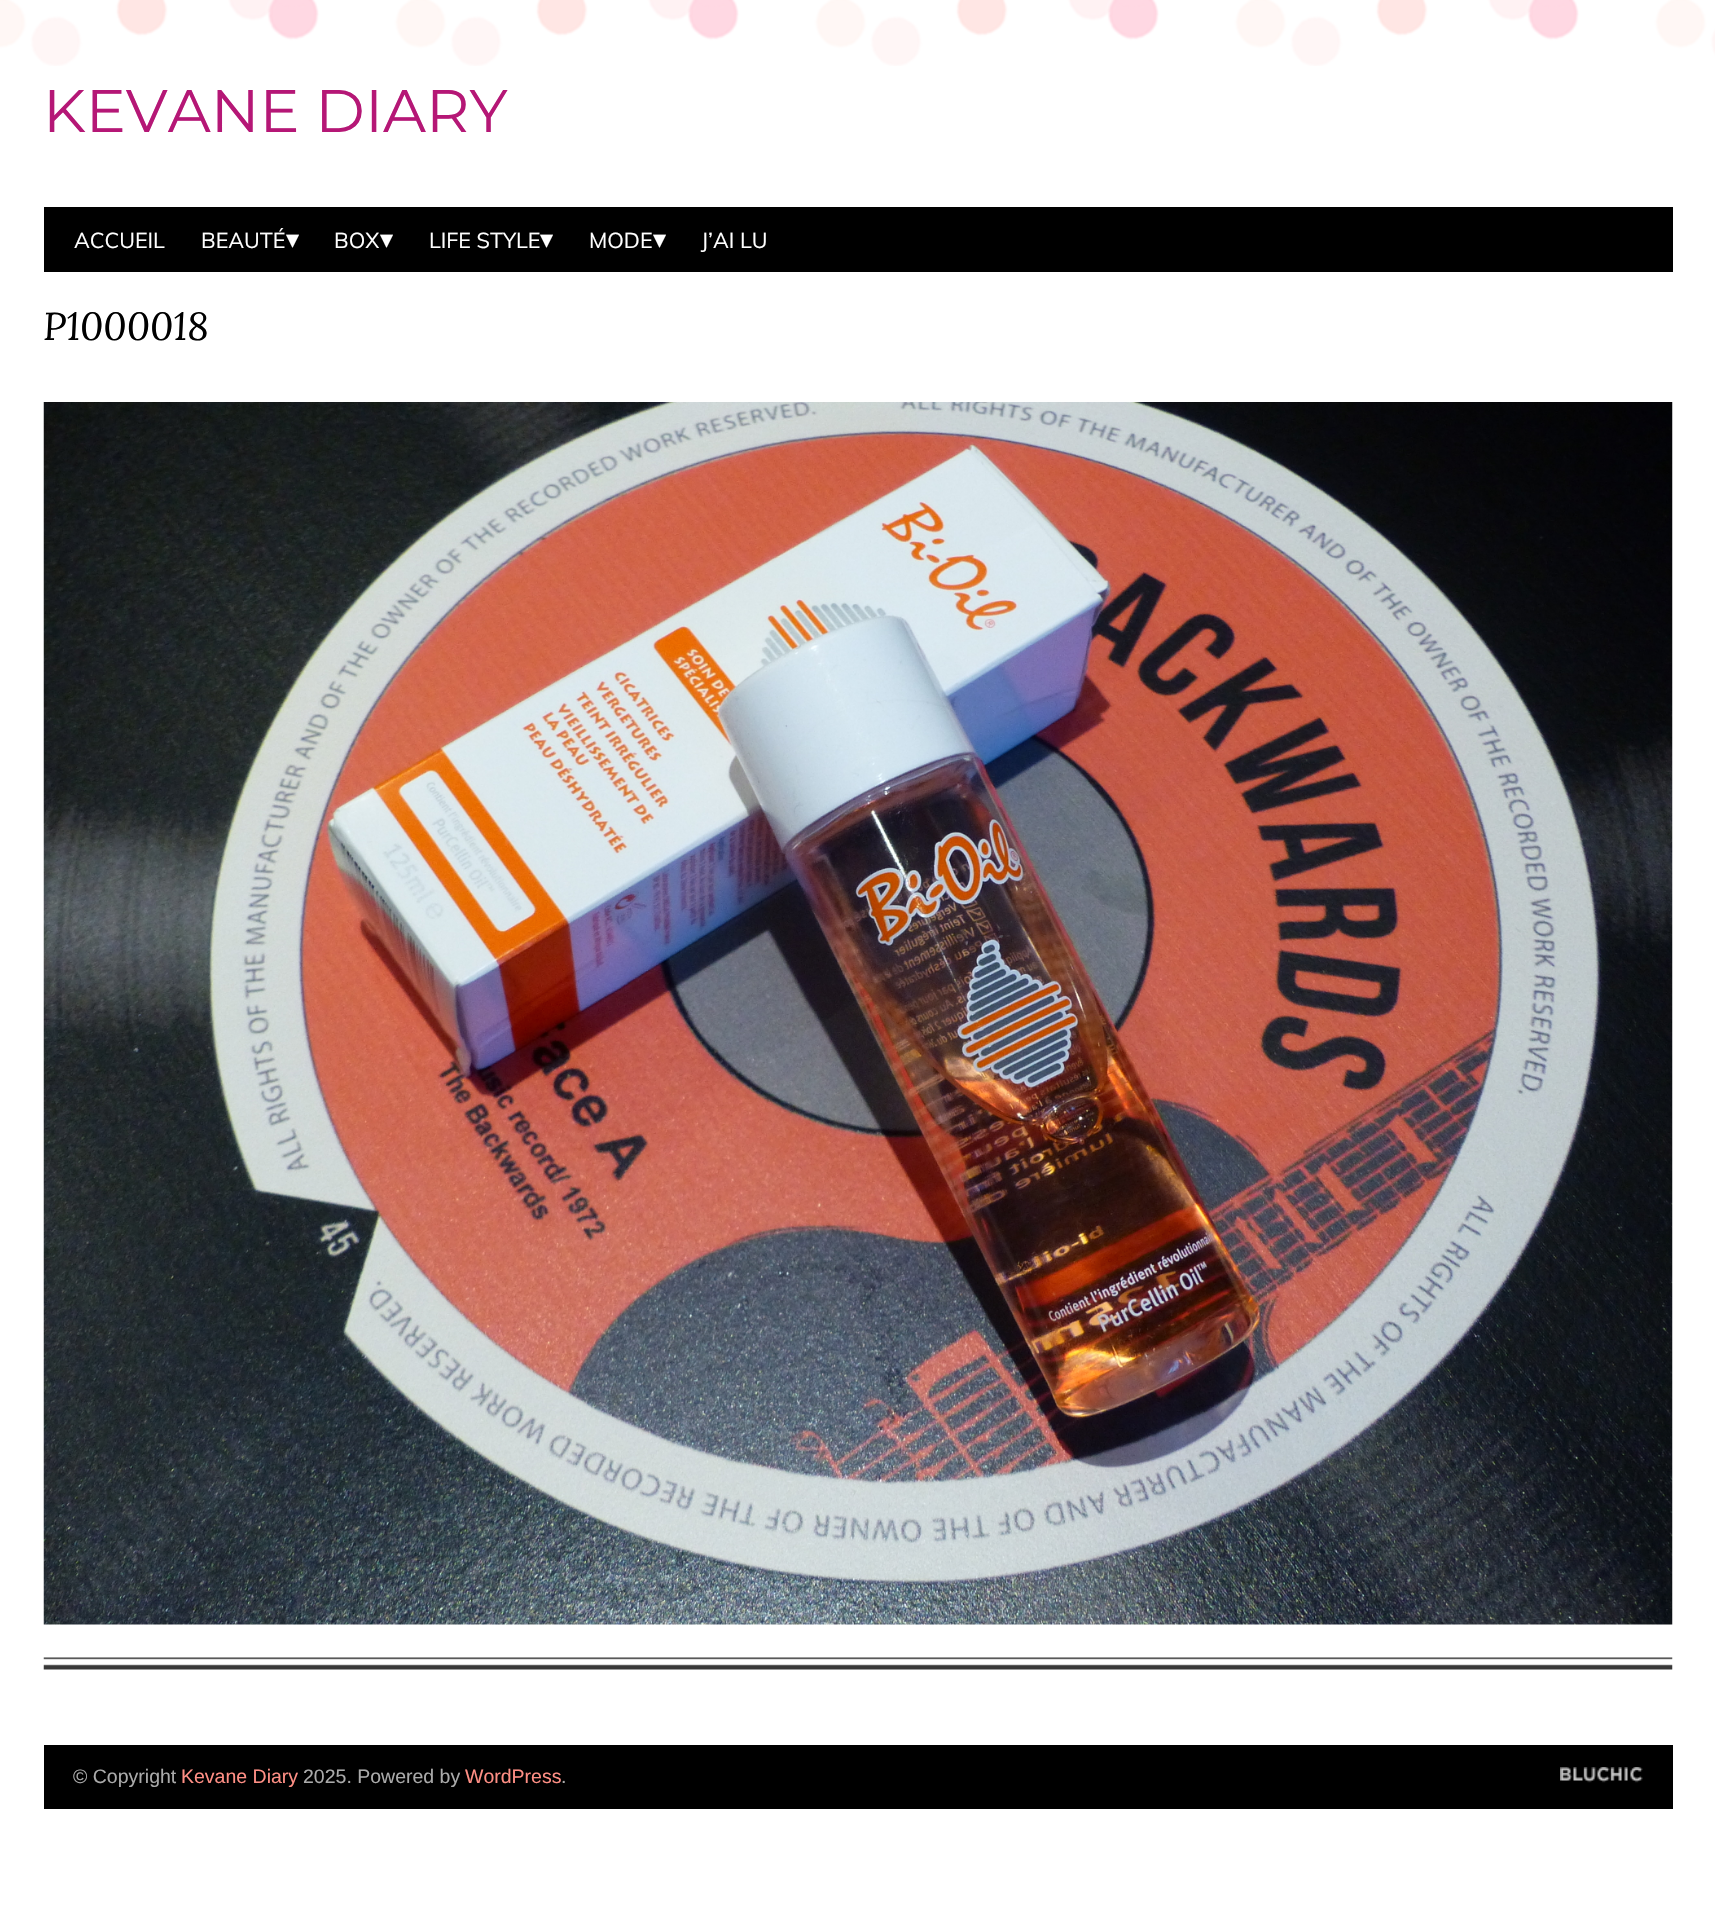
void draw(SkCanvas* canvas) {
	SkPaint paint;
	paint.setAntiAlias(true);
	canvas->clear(0xffffffff);
	canvas->drawImageRect(SkImages::DeferredFromEncodedData(SkData::MakeFromFileName("img1.png")), SkRect::MakeXYWH(0, 0, 1715, 66), SkSamplingOptions());
	SkFont f1(fontMgr->matchFamilyStyle("Montserrat", SkFontStyle::Normal()), 60);
	f1.setSubpixel(true);
	paint.setColor(0xffb51776);
	canvas->drawString("KEVANE DIARY", 43, 132, f1, paint);
	paint.setColor(0xff000000);
	canvas->drawRect(SkRect::MakeXYWH(44, 207, 1629, 65), paint);
	SkFont f2(fontMgr->matchFamilyStyle("Muli", SkFontStyle::Normal()), 21.5);
	f2.setSubpixel(true);
	paint.setColor(0xffffffff);
	canvas->drawString("ACCUEIL", 74, 248, f2, paint);
	canvas->drawString("BEAUTÉ", 201, 248, f2, paint);
	SkFont f3(fontMgr->matchFamilyStyle("DejaVu Sans", SkFontStyle::Normal()), 26);
	f3.setSubpixel(true);
	canvas->drawString("▾", 286, 248, f3, paint);
	canvas->drawString("BOX", 334, 248, f2, paint);
	canvas->drawString("▾", 380, 248, f3, paint);
	canvas->drawString("LIFE STYLE", 429, 248, f2, paint);
	canvas->drawString("▾", 540, 248, f3, paint);
	canvas->drawString("MODE", 589, 248, f2, paint);
	canvas->drawString("▾", 653, 248, f3, paint);
	canvas->drawString("J’AI LU", 701, 248, f2, paint);
	canvas->drawImageRect(SkImages::DeferredFromEncodedData(SkData::MakeFromFileName("img2.png")), SkRect::MakeXYWH(43, 1657, 1630, 13), SkSamplingOptions());
	SkFont f4(fontMgr->matchFamilyStyle("Lora", SkFontStyle::Italic()), 39);
	f4.setSubpixel(true);
	paint.setColor(0xff000000);
	canvas->drawString("P1000018", 43, 340, f4, paint);
	canvas->drawImageRect(SkImages::DeferredFromEncodedData(SkData::MakeFromFileName("img3.png")), SkRect::MakeXYWH(43, 402, 1630, 1223), SkSamplingOptions());
	canvas->drawRect(SkRect::MakeXYWH(44, 1745, 1629, 64), paint);
	SkFont f5(fontMgr->matchFamilyStyle("Liberation Sans", SkFontStyle::Normal()), 19.5);
	f5.setSubpixel(true);
	paint.setColor(0xffaaaaaa);
	canvas->drawString("© Copyright", 73, 1783, f5, paint);
	paint.setColor(0xffff8f85);
	canvas->drawString("Kevane Diary", 181, 1783, f5, paint);
	paint.setColor(0xffaaaaaa);
	canvas->drawString("2025. Powered by", 303, 1783, f5, paint);
	paint.setColor(0xffff8f85);
	canvas->drawString("WordPress", 465, 1783, f5, paint);
	paint.setColor(0xffaaaaaa);
	canvas->drawString(".", 561, 1783, f5, paint);
	canvas->drawImageRect(SkImages::DeferredFromEncodedData(SkData::MakeFromFileName("img4.png")), SkRect::MakeXYWH(1560, 1767, 83, 16), SkSamplingOptions());
}
